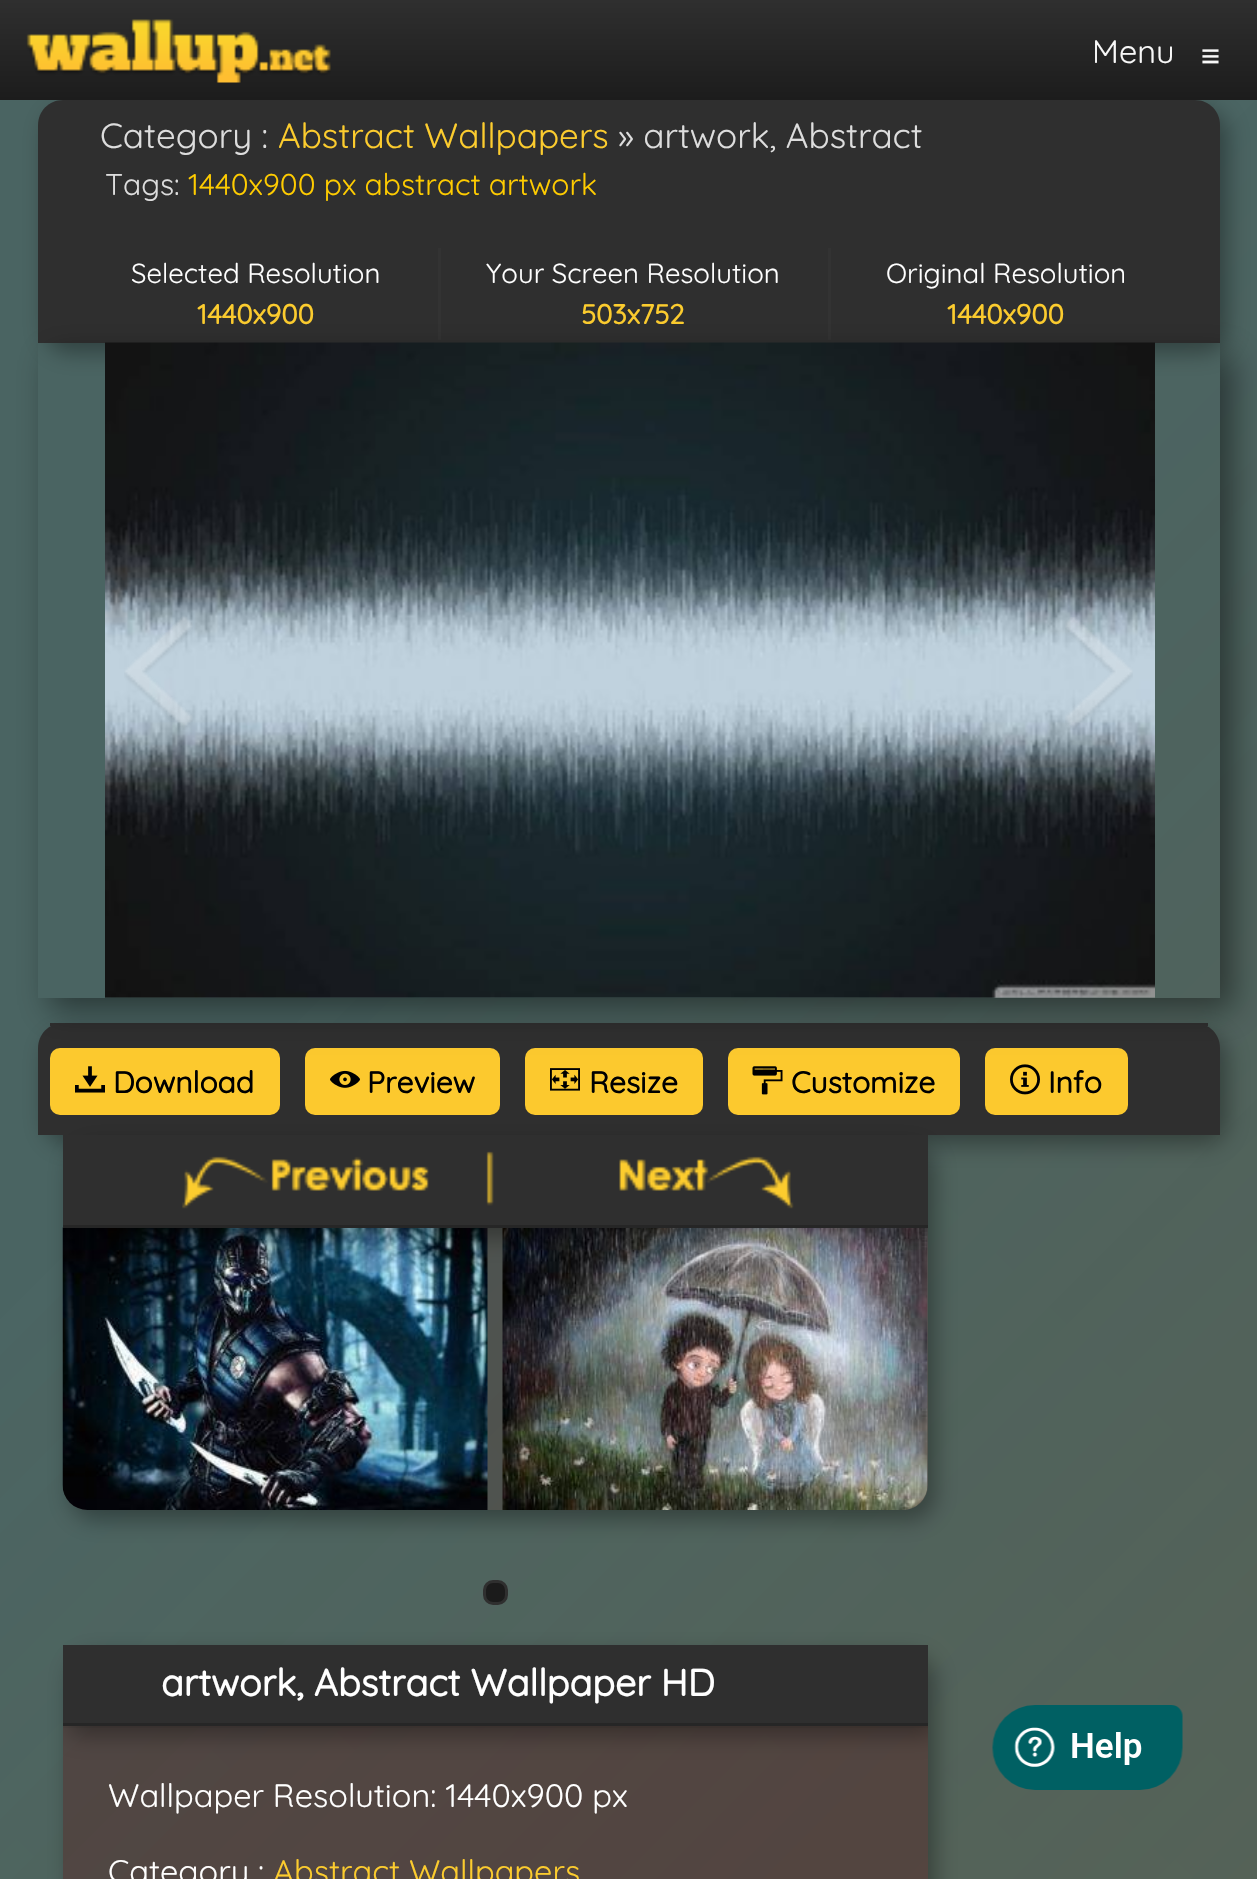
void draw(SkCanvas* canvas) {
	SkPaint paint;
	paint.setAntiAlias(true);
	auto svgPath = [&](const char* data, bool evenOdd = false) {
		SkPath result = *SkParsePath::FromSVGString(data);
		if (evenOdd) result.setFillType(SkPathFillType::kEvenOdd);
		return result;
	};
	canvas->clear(0xffffffff);
	{
		const SkColor colors[] = {0xff7f5429, 0xff949438};
		const float stops[] = {0.1, 0.8};
		const SkPoint ends[] = {{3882, 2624}, {-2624, 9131}};
		paint.setShader(SkGradientShader::MakeLinear(ends, colors, stops, 2, SkTileMode::kClamp));
		paint.setAlpha(255);
	}
	canvas->drawRect(SkRect::MakeXYWH(0, 100, 1257, 1779), paint);
	{
		const SkColor colors[] = {0xff4a6462, 0x004a6462};
		const float stops[] = {0.1, 0.8};
		const SkPoint ends[] = {{-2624, 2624}, {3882, 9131}};
		paint.setShader(SkGradientShader::MakeLinear(ends, colors, stops, 2, SkTileMode::kClamp));
		paint.setAlpha(255);
	}
	canvas->drawRect(SkRect::MakeXYWH(0, 100, 1257, 1779), paint);
	paint.setShader(nullptr);
	paint.setColor(0x57000000);
	paint.setMaskFilter(SkMaskFilter::MakeBlur(kNormal_SkBlurStyle, 11));
	canvas->drawRoundRect(SkRect::MakeXYWH(45, 110, 1183, 243), 25, 25, paint);
	paint.setMaskFilter(nullptr);
	{
		const SkColor colors[] = {0xff2f2f2f, 0xff1c1c1c};
		const float stops[] = {0, 1};
		const SkPoint ends[] = {{629, 0}, {629, 100}};
		paint.setShader(SkGradientShader::MakeLinear(ends, colors, stops, 2, SkTileMode::kClamp));
		paint.setAlpha(255);
	}
	canvas->drawRect(SkRect::MakeXYWH(0, 0, 1257, 100), paint);
	canvas->drawImageRect(SkImages::DeferredFromEncodedData(SkData::MakeFromFileName("img1.png")), SkRect::MakeXYWH(26, 19, 305, 64), SkSamplingOptions());
	SkFont f1(fontMgr->matchFamilyStyle("Quicksand", SkFontStyle(300, SkFontStyle::kNormal_Width, SkFontStyle::kUpright_Slant)), 32.5);
	f1.setSubpixel(true);
	paint.setShader(nullptr);
	paint.setColor(0xfff8f8f8);
	canvas->drawString("Menu", 1092, 63, f1, paint);
	SkFont f2(fontMgr->matchFamilyStyle("Liberation Sans", SkFontStyle::Normal()), 32.5);
	f2.setSubpixel(true);
	canvas->drawString("≡", 1201, 67, f2, paint);
	paint.setColor(0xff2f2f2f);
	canvas->drawPath(svgPath("M63 100H1195C1209 100 1220 111 1220 125V343H38V125C38 111 49 100 63 100Z"), paint);
	SkFont f3(fontMgr->matchFamilyStyle("Quicksand", SkFontStyle(300, SkFontStyle::kNormal_Width, SkFontStyle::kUpright_Slant)), 35);
	f3.setSubpixel(true);
	paint.setColor(0xffdddddd);
	canvas->drawString("Category :", 100, 148, f3, paint);
	paint.setColor(0xfffccc2e);
	canvas->drawString("Abstract Wallpapers", 278, 148, f3, paint);
	paint.setColor(0xffdddddd);
	canvas->drawString("» artwork, Abstract", 618, 148, f3, paint);
	SkFont f4(fontMgr->matchFamilyStyle("Quicksand", SkFontStyle(300, SkFontStyle::kNormal_Width, SkFontStyle::kUpright_Slant)), 30);
	f4.setSubpixel(true);
	canvas->drawString("Tags:", 105, 195, f4, paint);
	paint.setColor(0xffffcc00);
	canvas->drawString("1440x900 px abstract artwork", 188, 195, f4, paint);
	SkFont f5(fontMgr->matchFamilyStyle("Quicksand", SkFontStyle(300, SkFontStyle::kNormal_Width, SkFontStyle::kUpright_Slant)), 27.5);
	f5.setSubpixel(true);
	paint.setColor(0xffffffff);
	canvas->drawString("Selected Resolution", 131, 283, f5, paint);
	SkFont f6(fontMgr->matchFamilyStyle("Quicksand", SkFontStyle::Bold()), 27.5);
	f6.setSubpixel(true);
	paint.setColor(0xfffccc2e);
	canvas->drawString("1440x900", 197, 324, f6, paint);
	paint.setColor(0xff333333);
	canvas->drawRect(SkRect::MakeXYWH(828, 248, 3, 92), paint);
	canvas->drawRect(SkRect::MakeXYWH(438, 248, 3, 92), paint);
	paint.setColor(0xffffffff);
	canvas->drawString("Your Screen Resolution", 486, 283, f5, paint);
	paint.setColor(0xfffccc2e);
	canvas->drawString("503x752", 581, 324, f6, paint);
	paint.setColor(0xffffffff);
	canvas->drawString("Original Resolution", 886, 283, f5, paint);
	paint.setColor(0xfffccc2e);
	canvas->drawString("1440x900", 947, 324, f6, paint);
	canvas->drawImageRect(SkImages::DeferredFromEncodedData(SkData::MakeFromFileName("img3.png")), SkRect::MakeXYWH(105, 997, 1050, 1), SkSamplingOptions());
	paint.setColor(0x57000000);
	paint.setMaskFilter(SkMaskFilter::MakeBlur(kNormal_SkBlurStyle, 11));
	canvas->drawRoundRect(SkRect::MakeXYWH(45, 1033, 1183, 112), 25, 25, paint);
	paint.setMaskFilter(nullptr);
	paint.setColor(0xff2f2f2f);
	canvas->drawPath(svgPath("M63 1023H1195C1209 1023 1220 1034 1220 1048V1135H38V1048C38 1034 49 1023 63 1023Z"), paint);
	canvas->drawRect(SkRect::MakeXYWH(50, 1023, 1158, 3), paint);
	paint.setColor(0xfffcc92e);
	canvas->drawRoundRect(SkRect::MakeXYWH(305, 1048, 195, 67), 10, 10, paint);
	canvas->drawRoundRect(SkRect::MakeXYWH(525, 1048, 178, 67), 10, 10, paint);
	canvas->drawRoundRect(SkRect::MakeXYWH(728, 1048, 232, 67), 10, 10, paint);
	canvas->drawRoundRect(SkRect::MakeXYWH(985, 1048, 143, 67), 10, 10, paint);
	canvas->save();
	canvas->clipPath(svgPath("M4 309H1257V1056H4ZM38 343H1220V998H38Z", true), true);
	paint.setColor(0x70000000);
	paint.setMaskFilter(SkMaskFilter::MakeBlur(kNormal_SkBlurStyle, 15));
	canvas->drawRect(SkRect::MakeXYWH(50, 355, 1183, 655), paint);
	paint.setMaskFilter(nullptr);
	canvas->restore();
	canvas->drawImageRect(SkImages::DeferredFromEncodedData(SkData::MakeFromFileName("img2.png")), SkRect::MakeXYWH(105, 342, 1050, 656), SkSamplingOptions());
	canvas->drawImageRect(SkImages::DeferredFromEncodedData(SkData::MakeFromFileName("img4.png")), SkRect::MakeXYWH(124, 616, 69, 114), SkSamplingOptions());
	canvas->drawImageRect(SkImages::DeferredFromEncodedData(SkData::MakeFromFileName("img5.png")), SkRect::MakeXYWH(1065, 617, 68, 113), SkSamplingOptions());
	paint.setColor(0xfffcc92e);
	canvas->drawRoundRect(SkRect::MakeXYWH(50, 1048, 230, 67), 10, 10, paint);
	canvas->drawImageRect(SkImages::DeferredFromEncodedData(SkData::MakeFromFileName("img6.png")), SkRect::MakeXYWH(75, 1066, 30, 27), SkSamplingOptions());
	SkFont f7(fontMgr->matchFamilyStyle("Quicksand", SkFontStyle::Bold()), 30);
	f7.setSubpixel(true);
	paint.setColor(0xff000000);
	canvas->drawString("Download", 113, 1093, f7, paint);
	canvas->drawImageRect(SkImages::DeferredFromEncodedData(SkData::MakeFromFileName("img7.png")), SkRect::MakeXYWH(330, 1070, 30, 18), SkSamplingOptions());
	canvas->drawString("Preview", 367, 1093, f7, paint);
	canvas->drawImageRect(SkImages::DeferredFromEncodedData(SkData::MakeFromFileName("img8.png")), SkRect::MakeXYWH(550, 1068, 30, 23), SkSamplingOptions());
	canvas->drawString("Resize", 589, 1093, f7, paint);
	canvas->drawImageRect(SkImages::DeferredFromEncodedData(SkData::MakeFromFileName("img9.png")), SkRect::MakeXYWH(752, 1066, 31, 29), SkSamplingOptions());
	canvas->drawString("Customize", 791, 1093, f7, paint);
	canvas->drawImageRect(SkImages::DeferredFromEncodedData(SkData::MakeFromFileName("img10.png")), SkRect::MakeXYWH(1010, 1064, 30, 31), SkSamplingOptions());
	canvas->drawString("Info", 1048, 1093, f7, paint);
	canvas->save();
	canvas->clipPath(svgPath("M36 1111H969V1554H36ZM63 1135H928V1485C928 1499 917 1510 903 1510H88C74 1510 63 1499 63 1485Z", true), true);
	paint.setColor(0x57000000);
	paint.setMaskFilter(SkMaskFilter::MakeBlur(kNormal_SkBlurStyle, 11));
	canvas->drawRoundRect(SkRect::MakeXYWH(70, 1145, 865, 375), 25, 25, paint);
	paint.setMaskFilter(nullptr);
	canvas->restore();
	paint.setColor(0x3b501a1a);
	canvas->drawPath(svgPath("M63 1135H928V1485C928 1499 917 1510 903 1510H88C74 1510 63 1499 63 1485Z"), paint);
	canvas->drawImageRect(SkImages::DeferredFromEncodedData(SkData::MakeFromFileName("img12.png")), SkRect::MakeXYWH(62, 1227, 426, 283), SkSamplingOptions());
	canvas->drawImageRect(SkImages::DeferredFromEncodedData(SkData::MakeFromFileName("img13.png")), SkRect::MakeXYWH(502, 1228, 426, 282), SkSamplingOptions());
	canvas->save();
	canvas->clipPath(svgPath("M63 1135H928V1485C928 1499 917 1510 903 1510H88C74 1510 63 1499 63 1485Z"), true);
	paint.setColor(0x57000000);
	paint.setMaskFilter(SkMaskFilter::MakeBlur(kNormal_SkBlurStyle, 11));
	canvas->drawRect(SkRect::MakeXYWH(70, 1145, 865, 93), paint);
	paint.setMaskFilter(nullptr);
	canvas->restore();
	paint.setColor(0xff2f2f2f);
	canvas->drawRect(SkRect::MakeXYWH(63, 1135, 865, 90), paint);
	paint.setColor(0xff262626);
	canvas->drawRect(SkRect::MakeXYWH(63, 1225, 865, 3), paint);
	canvas->drawImageRect(SkImages::DeferredFromEncodedData(SkData::MakeFromFileName("img11.png")), SkRect::MakeXYWH(182, 1151, 612, 58), SkSamplingOptions());
	paint.setColor(0xff1b1b1b);
	canvas->drawRoundRect(SkRect::MakeXYWH(484.5, 1581.5, 22, 22), 8.5, 8.5, paint);
	paint.setStroke(true);
	paint.setStrokeWidth(3);
	paint.setColor(0xff2f2f2f);
	canvas->drawRoundRect(SkRect::MakeXYWH(484.5, 1581.5, 22, 22), 8.5, 8.5, paint);
	canvas->save();
	canvas->clipPath(svgPath("M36 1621H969V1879H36ZM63 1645H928V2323C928 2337 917 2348 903 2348H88C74 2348 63 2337 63 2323Z", true), true);
	paint.setStroke(false);
	paint.setColor(0x57000000);
	paint.setMaskFilter(SkMaskFilter::MakeBlur(kNormal_SkBlurStyle, 11));
	canvas->drawRoundRect(SkRect::MakeXYWH(70, 1655, 865, 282), 25, 25, paint);
	paint.setMaskFilter(nullptr);
	canvas->restore();
	paint.setColor(0x3b501a1a);
	canvas->drawRect(SkRect::MakeXYWH(63, 1726, 865, 153), paint);
	canvas->drawRect(SkRect::MakeXYWH(63, 1726, 865, 153), paint);
	paint.setColor(0x0d000000);
	canvas->drawRect(SkRect::MakeXYWH(63, 1726, 865, 2), paint);
	canvas->save();
	canvas->clipPath(svgPath("M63 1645H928V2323C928 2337 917 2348 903 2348H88C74 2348 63 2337 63 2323Z"), true);
	paint.setColor(0x57000000);
	paint.setMaskFilter(SkMaskFilter::MakeBlur(kNormal_SkBlurStyle, 11));
	canvas->drawRect(SkRect::MakeXYWH(70, 1655, 865, 80), paint);
	paint.setMaskFilter(nullptr);
	canvas->restore();
	paint.setColor(0xff2f2f2f);
	canvas->drawRect(SkRect::MakeXYWH(63, 1645, 865, 78), paint);
	paint.setColor(0xff262626);
	canvas->drawRect(SkRect::MakeXYWH(63, 1723, 865, 3), paint);
	SkFont f8(fontMgr->matchFamilyStyle("Quicksand", SkFontStyle::Bold()), 37.5);
	f8.setSubpixel(true);
	paint.setColor(0xffffffff);
	canvas->drawString("artwork, Abstract Wallpaper HD", 161, 1696, f8, paint);
	canvas->drawString("Wallpaper Resolution: 1440x900 px", 108, 1807, f1, paint);
	canvas->drawString("Category :", 108, 1883, f1, paint);
	paint.setColor(0xfffccc2e);
	canvas->drawString("Abstract Wallpapers", 273, 1883, f1, paint);
	canvas->drawImageRect(SkImages::DeferredFromEncodedData(SkData::MakeFromFileName("img14.png")), SkRect::MakeXYWH(992, 1705, 191, 85), SkSamplingOptions());
}
